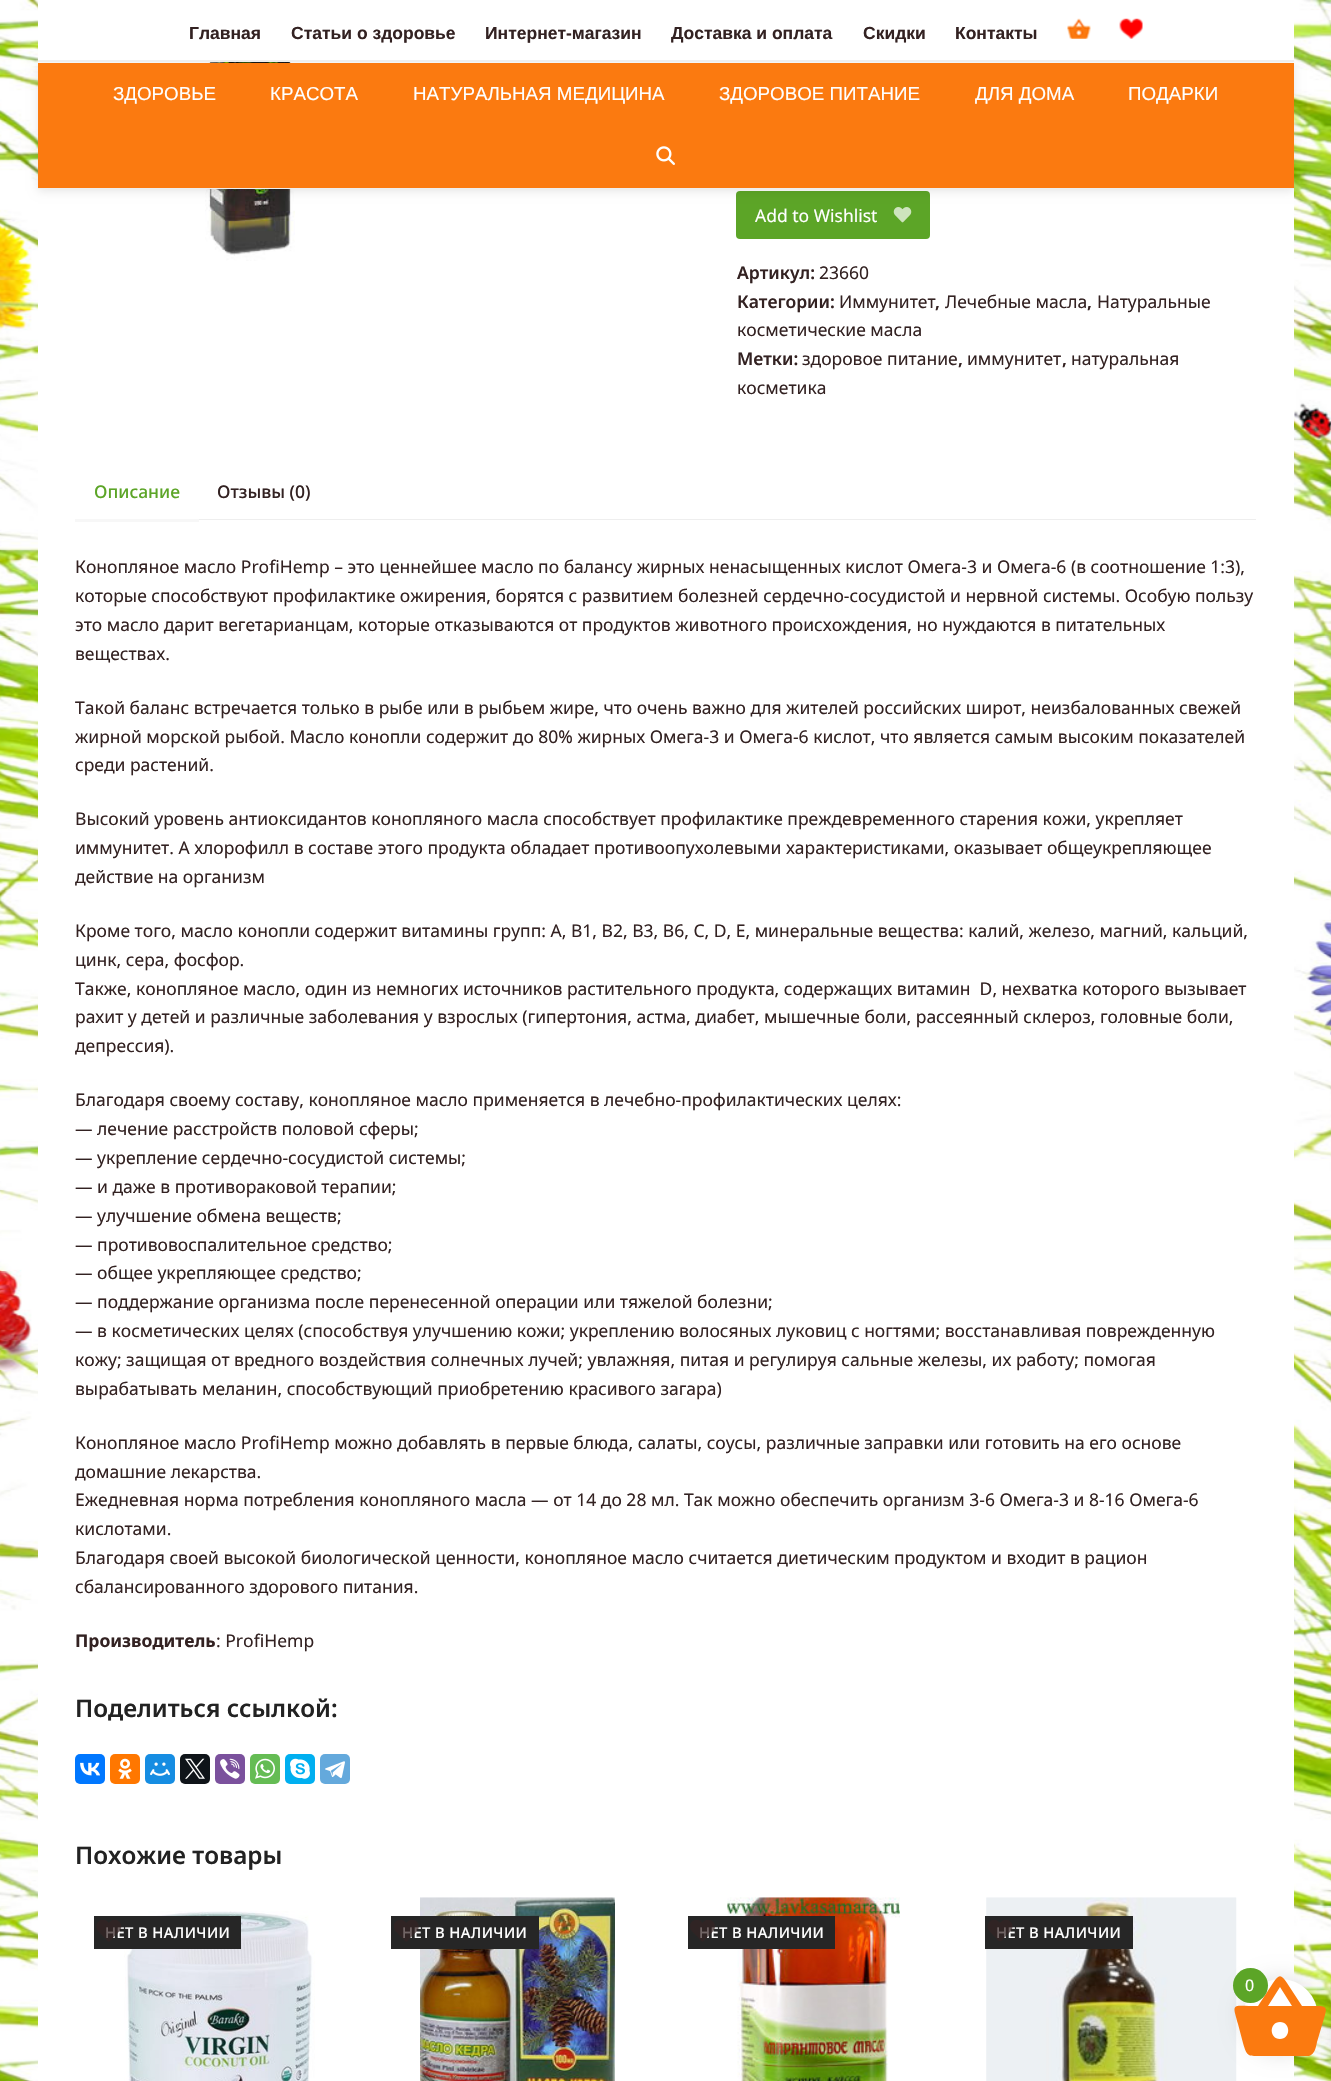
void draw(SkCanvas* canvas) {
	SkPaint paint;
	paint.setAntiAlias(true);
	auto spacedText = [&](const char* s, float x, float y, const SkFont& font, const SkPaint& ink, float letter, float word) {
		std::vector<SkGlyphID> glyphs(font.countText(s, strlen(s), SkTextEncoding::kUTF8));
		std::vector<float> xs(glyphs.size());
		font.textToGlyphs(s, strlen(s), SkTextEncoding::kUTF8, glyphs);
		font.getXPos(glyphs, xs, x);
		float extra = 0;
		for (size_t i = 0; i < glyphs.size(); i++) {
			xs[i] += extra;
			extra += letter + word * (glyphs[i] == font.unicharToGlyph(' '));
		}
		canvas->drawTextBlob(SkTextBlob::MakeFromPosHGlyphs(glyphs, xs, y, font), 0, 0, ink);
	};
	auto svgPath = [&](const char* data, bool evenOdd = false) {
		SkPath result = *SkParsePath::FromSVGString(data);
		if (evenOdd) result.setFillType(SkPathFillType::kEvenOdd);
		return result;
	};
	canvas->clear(0xffffffff);
	canvas->drawImageRect(SkImages::DeferredFromEncodedData(SkData::MakeFromFileName("img1.png")), SkRect::MakeXYWH(0, 0, 1331, 2081), SkSamplingOptions());
	paint.setColor(0xffffffff);
	canvas->drawRect(SkRect::MakeXYWH(38, 62, 1256, 2019), paint);
	canvas->drawImageRect(SkImages::DeferredFromEncodedData(SkData::MakeFromFileName("img5.png")), SkRect::MakeXYWH(205, 62, 90, 199), SkSamplingOptions());
	paint.setColor(0xff5ca527);
	canvas->drawRoundRect(SkRect::MakeXYWH(736, 191, 194, 48), 4, 4, paint);
	paint.setColor(0x1a000000);
	paint.setMaskFilter(SkMaskFilter::MakeBlur(kNormal_SkBlurStyle, 4.5));
	canvas->drawRect(SkRect::MakeXYWH(38, 64, 1256, 127), paint);
	paint.setMaskFilter(nullptr);
	paint.setColor(0xffffffff);
	canvas->drawRect(SkRect::MakeXYWH(38, 0, 1256, 60), paint);
	SkFont f1(fontMgr->matchFamilyStyle("Liberation Sans", SkFontStyle::Bold()), 17.5);
	f1.setSubpixel(true);
	paint.setColor(0xff332222);
	canvas->drawString("Главная", 189, 39, f1, paint);
	canvas->drawString("Статьи о здоровье", 291, 39, f1, paint);
	canvas->drawString("Интернет-магазин", 485, 39, f1, paint);
	canvas->drawString("Доставка и оплата", 671, 39, f1, paint);
	canvas->drawString("Скидки", 863, 39, f1, paint);
	canvas->drawString("Контакты", 955, 39, f1, paint);
	canvas->drawImageRect(SkImages::DeferredFromEncodedData(SkData::MakeFromFileName("img2.png")), SkRect::MakeXYWH(1067, 18, 24, 21), SkSamplingOptions());
	canvas->drawImageRect(SkImages::DeferredFromEncodedData(SkData::MakeFromFileName("img3.png")), SkRect::MakeXYWH(1119, 18, 24, 21), SkSamplingOptions());
	paint.setColor(0xfffb7a10);
	canvas->drawRect(SkRect::MakeXYWH(38, 63, 1256, 125), paint);
	paint.setColor(0xffeeeeee);
	canvas->drawRect(SkRect::MakeXYWH(38, 60, 1256, 2), paint);
	canvas->drawRect(SkRect::MakeXYWH(38, 188, 1256, 1), paint);
	SkFont f2(fontMgr->matchFamilyStyle("Liberation Sans", SkFontStyle::Normal()), 18.75);
	f2.setSubpixel(true);
	paint.setColor(0xffffffff);
	canvas->drawString("ЗДОРОВЬЕ", 113, 100, f2, paint);
	canvas->drawString("КРАСОТА", 270, 100, f2, paint);
	canvas->drawString("НАТУРАЛЬНАЯ МЕДИЦИНА", 413, 100, f2, paint);
	canvas->drawString("ЗДОРОВОЕ ПИТАНИЕ", 719, 100, f2, paint);
	canvas->drawString("ДЛЯ ДОМА", 975, 100, f2, paint);
	canvas->drawString("ПОДАРКИ", 1128, 100, f2, paint);
	canvas->drawImageRect(SkImages::DeferredFromEncodedData(SkData::MakeFromFileName("img4.png")), SkRect::MakeXYWH(656, 146, 19, 19), SkSamplingOptions());
	SkFont f3(fontMgr->matchFamilyStyle("Noto Sans", SkFontStyle::Normal()), 17.5);
	f3.setSubpixel(true);
	canvas->drawString("Add to Wishlist", 755, 222, f3, paint);
	canvas->drawImageRect(SkImages::DeferredFromEncodedData(SkData::MakeFromFileName("img6.png")), SkRect::MakeXYWH(893, 207, 19, 16), SkSamplingOptions());
	SkFont f4(fontMgr->matchFamilyStyle("Noto Sans", SkFontStyle(600, SkFontStyle::kNormal_Width, SkFontStyle::kUpright_Slant)), 17.5);
	f4.setSubpixel(true);
	paint.setColor(0xff332222);
	canvas->drawString("Артикул:", 737, 279, f4, paint);
	canvas->drawString("23660", 819, 279, f3, paint);
	canvas->drawString("Категории:", 737, 308, f4, paint);
	canvas->drawString("Иммунитет", 839, 308, f3, paint);
	canvas->drawString(",", 935, 308, f4, paint);
	canvas->drawString("Лечебные масла", 945, 308, f3, paint);
	canvas->drawString(",", 1087, 308, f4, paint);
	canvas->drawString("Натуральные", 1097, 308, f3, paint);
	canvas->drawString("косметические масла", 737, 336, f3, paint);
	canvas->drawString("Метки:", 737, 365, f4, paint);
	canvas->drawString("здоровое питание", 802, 365, f3, paint);
	canvas->drawString(",", 958, 365, f4, paint);
	canvas->drawString("иммунитет", 967, 365, f3, paint);
	canvas->drawString(",", 1062, 365, f4, paint);
	canvas->drawString("натуральная", 1071, 365, f3, paint);
	canvas->drawString("косметика", 737, 394, f3, paint);
	paint.setColor(0xfff7f7f7);
	canvas->drawRect(SkRect::MakeXYWH(75, 519, 124, 3), paint);
	SkFont f5(fontMgr->matchFamilyStyle("Noto Sans", SkFontStyle(500, SkFontStyle::kNormal_Width, SkFontStyle::kUpright_Slant)), 17.5);
	f5.setSubpixel(true);
	paint.setColor(0xff5ca527);
	canvas->drawString("Описание", 94, 498, f5, paint);
	paint.setColor(0xff332222);
	canvas->drawString("Отзывы (0)", 217, 498, f5, paint);
	paint.setColor(0xffeeeeee);
	canvas->drawRect(SkRect::MakeXYWH(199, 519, 1057, 1), paint);
	paint.setColor(0xff332222);
	canvas->drawString("Конопляное масло ProfiHemp – это ценнейшее масло по балансу жирных ненасыщенных кислот Омега-3 и Омега-6 (в соотношение 1:3),", 75, 573, f3, paint);
	canvas->drawString("которые способствуют профилактике ожирения, борятся с развитием болезней сердечно-сосудистой и нервной системы. Особую пользу", 75, 602, f3, paint);
	canvas->drawString("это масло дарит вегетарианцам, которые отказываются от продуктов животного происхождения, но нуждаются в питательных", 75, 631, f3, paint);
	canvas->drawString("веществах.", 75, 660, f3, paint);
	canvas->drawString("Такой баланс встречается только в рыбе или в рыбьем жире, что очень важно для жителей российских широт, неизбалованных свежей", 75, 714, f3, paint);
	canvas->drawString("жирной морской рыбой. Масло конопли содержит до 80% жирных Омега-3 и Омега-6 кислот, что является самым высоким показателей", 75, 743, f3, paint);
	canvas->drawString("среди растений.", 75, 771, f3, paint);
	canvas->drawString("Высокий уровень антиоксидантов конопляного масла способствует профилактике преждевременного старения кожи, укрепляет", 75, 825, f3, paint);
	canvas->drawString("иммунитет. А хлорофилл в составе этого продукта обладает противоопухолевыми характеристиками, оказывает общеукрепляющее", 75, 854, f3, paint);
	canvas->drawString("действие на организм", 75, 883, f3, paint);
	canvas->drawString("Кроме того, масло конопли содержит витамины групп: А, В1, В2, В3, В6, C, D, E, минеральные вещества: калий, железо, магний, кальций,", 75, 937, f3, paint);
	canvas->drawString("цинк, сера, фосфор.", 75, 966, f3, paint);
	canvas->drawString("Также, конопляное масло, один из немногих источников растительного продукта, содержащих витамин  D, нехватка которого вызывает", 75, 995, f3, paint);
	canvas->drawString("рахит у детей и различные заболевания у взрослых (гипертония, астма, диабет, мышечные боли, рассеянный склероз, головные боли,", 75, 1023, f3, paint);
	canvas->drawString("депрессия).", 75, 1052, f3, paint);
	canvas->drawString("Благодаря своему составу, конопляное масло применяется в лечебно-профилактических целях:", 75, 1106, f3, paint);
	canvas->drawString("— лечение расстройств половой сферы;", 75, 1135, f3, paint);
	canvas->drawString("— укрепление сердечно-сосудистой системы;", 75, 1164, f3, paint);
	canvas->drawString("— и даже в противораковой терапии;", 75, 1193, f3, paint);
	canvas->drawString("— улучшение обмена веществ;", 75, 1222, f3, paint);
	canvas->drawString("— противовоспалительное средство;", 75, 1251, f3, paint);
	canvas->drawString("— общее укрепляющее средство;", 75, 1279, f3, paint);
	canvas->drawString("— поддержание организма после перенесенной операции или тяжелой болезни;", 75, 1308, f3, paint);
	canvas->drawString("— в косметических целях (способствуя улучшению кожи; укреплению волосяных луковиц с ногтями; восстанавливая поврежденную", 75, 1337, f3, paint);
	canvas->drawString("кожу; защищая от вредного воздействия солнечных лучей; увлажняя, питая и регулируя сальные железы, их работу; помогая", 75, 1366, f3, paint);
	canvas->drawString("вырабатывать меланин, способствующий приобретению красивого загара)", 75, 1395, f3, paint);
	canvas->drawString("Конопляное масло ProfiHemp можно добавлять в первые блюда, салаты, соусы, различные заправки или готовить на его основе", 75, 1449, f3, paint);
	canvas->drawString("домашние лекарства.", 75, 1478, f3, paint);
	canvas->drawString("Ежедневная норма потребления конопляного масла — от 14 до 28 мл. Так можно обеспечить организм 3-6 Омега-3 и 8-16 Омега-6", 75, 1506, f3, paint);
	canvas->drawString("кислотами.", 75, 1535, f3, paint);
	canvas->drawString("Благодаря своей высокой биологической ценности, конопляное масло считается диетическим продуктом и входит в рацион", 75, 1564, f3, paint);
	canvas->drawString("сбалансированного здорового питания.", 75, 1593, f3, paint);
	SkFont f6(fontMgr->matchFamilyStyle("Noto Sans", SkFontStyle::Bold()), 17.5);
	f6.setSubpixel(true);
	canvas->drawString("Производитель", 75, 1647, f6, paint);
	canvas->drawString(": ProfiHemp", 216, 1647, f3, paint);
	SkFont f7(fontMgr->matchFamilyStyle("Noto Sans", SkFontStyle(600, SkFontStyle::kNormal_Width, SkFontStyle::kUpright_Slant)), 24.25);
	f7.setSubpixel(true);
	paint.setColor(0xff222222);
	canvas->drawString("Поделиться ссылкой:", 75, 1717, f7, paint);
	paint.setColor(0xff0077ff);
	canvas->drawRoundRect(SkRect::MakeXYWH(75, 1754, 30, 30), 5, 5, paint);
	canvas->drawImageRect(SkImages::DeferredFromEncodedData(SkData::MakeFromFileName("img7.png")), SkRect::MakeXYWH(80, 1762, 20, 14), SkSamplingOptions());
	paint.setColor(0xffff7700);
	canvas->drawRoundRect(SkRect::MakeXYWH(110, 1754, 30, 30), 5, 5, paint);
	canvas->drawImageRect(SkImages::DeferredFromEncodedData(SkData::MakeFromFileName("img8.png")), SkRect::MakeXYWH(118, 1758, 14, 21), SkSamplingOptions());
	paint.setColor(0xff168de2);
	canvas->drawRoundRect(SkRect::MakeXYWH(145, 1754, 30, 30), 5, 5, paint);
	canvas->drawImageRect(SkImages::DeferredFromEncodedData(SkData::MakeFromFileName("img9.png")), SkRect::MakeXYWH(150, 1762, 20, 14), SkSamplingOptions());
	paint.setColor(0xff0f1419);
	canvas->drawRoundRect(SkRect::MakeXYWH(180, 1754, 30, 30), 5, 5, paint);
	canvas->drawImageRect(SkImages::DeferredFromEncodedData(SkData::MakeFromFileName("img10.png")), SkRect::MakeXYWH(185, 1758, 20, 21), SkSamplingOptions());
	paint.setColor(0xff7b519d);
	canvas->drawRoundRect(SkRect::MakeXYWH(215, 1754, 30, 30), 5, 5, paint);
	canvas->drawImageRect(SkImages::DeferredFromEncodedData(SkData::MakeFromFileName("img11.png")), SkRect::MakeXYWH(220, 1758, 20, 21), SkSamplingOptions());
	paint.setColor(0xff65bc54);
	canvas->drawRoundRect(SkRect::MakeXYWH(250, 1754, 30, 30), 5, 5, paint);
	canvas->drawImageRect(SkImages::DeferredFromEncodedData(SkData::MakeFromFileName("img12.png")), SkRect::MakeXYWH(255, 1758, 20, 21), SkSamplingOptions());
	paint.setColor(0xff00aff0);
	canvas->drawRoundRect(SkRect::MakeXYWH(285, 1754, 30, 30), 5, 5, paint);
	canvas->drawImageRect(SkImages::DeferredFromEncodedData(SkData::MakeFromFileName("img13.png")), SkRect::MakeXYWH(290, 1758, 20, 21), SkSamplingOptions());
	paint.setColor(0xff64a9dc);
	canvas->drawRoundRect(SkRect::MakeXYWH(320, 1754, 30, 30), 5, 5, paint);
	canvas->drawImageRect(SkImages::DeferredFromEncodedData(SkData::MakeFromFileName("img14.png")), SkRect::MakeXYWH(325, 1761, 20, 17), SkSamplingOptions());
	paint.setColor(0xff222222);
	canvas->drawString("Похожие товары", 75, 1864, f7, paint);
	canvas->drawImageRect(SkImages::DeferredFromEncodedData(SkData::MakeFromFileName("img16.png")), SkRect::MakeXYWH(124, 1911, 191, 170), SkSamplingOptions());
	paint.setColor(0xff262626);
	canvas->drawRect(SkRect::MakeXYWH(94, 1916, 147, 33), paint);
	SkFont f8(fontMgr->matchFamilyStyle("Noto Sans", SkFontStyle(500, SkFontStyle::kNormal_Width, SkFontStyle::kUpright_Slant)), 14.75);
	f8.setSubpixel(true);
	paint.setColor(0xffffffff);
	spacedText("НЕТ В НАЛИЧИИ", 105, 1938, f8, paint, 0.4, 0);
	canvas->drawImageRect(SkImages::DeferredFromEncodedData(SkData::MakeFromFileName("img15.png")), SkRect::MakeXYWH(96, 1920, 26, 22), SkSamplingOptions());
	canvas->drawImageRect(SkImages::DeferredFromEncodedData(SkData::MakeFromFileName("img18.png")), SkRect::MakeXYWH(420, 1897, 195, 184), SkSamplingOptions());
	paint.setColor(0xff262626);
	canvas->drawRect(SkRect::MakeXYWH(391, 1916, 148, 33), paint);
	paint.setColor(0xffffffff);
	spacedText("НЕТ В НАЛИЧИИ", 402, 1938, f8, paint, 0.4, 0);
	canvas->drawImageRect(SkImages::DeferredFromEncodedData(SkData::MakeFromFileName("img17.png")), SkRect::MakeXYWH(394, 1920, 25, 22), SkSamplingOptions());
	canvas->drawImageRect(SkImages::DeferredFromEncodedData(SkData::MakeFromFileName("img20.png")), SkRect::MakeXYWH(727, 1897, 173, 184), SkSamplingOptions());
	paint.setColor(0xff262626);
	canvas->drawRect(SkRect::MakeXYWH(688, 1916, 147, 33), paint);
	paint.setColor(0xffffffff);
	spacedText("НЕТ В НАЛИЧИИ", 699, 1938, f8, paint, 0.4, 0);
	canvas->drawImageRect(SkImages::DeferredFromEncodedData(SkData::MakeFromFileName("img19.png")), SkRect::MakeXYWH(690, 1920, 25, 22), SkSamplingOptions());
	canvas->drawImageRect(SkImages::DeferredFromEncodedData(SkData::MakeFromFileName("img21.png")), SkRect::MakeXYWH(986, 1897, 251, 184), SkSamplingOptions());
	paint.setColor(0xff262626);
	canvas->drawRect(SkRect::MakeXYWH(985, 1916, 148, 33), paint);
	paint.setColor(0xffffffff);
	spacedText("НЕТ В НАЛИЧИИ", 996, 1938, f8, paint, 0.4, 0);
	canvas->drawImageRect(SkImages::DeferredFromEncodedData(SkData::MakeFromFileName("img22.png")), SkRect::MakeXYWH(987, 1920, 26, 21), SkSamplingOptions());
	paint.setColor(0x1a000000);
	paint.setMaskFilter(SkMaskFilter::MakeBlur(kNormal_SkBlurStyle, 9.5));
	canvas->drawRoundRect(SkRect::MakeXYWH(1240, 1976, 80, 80), 40, 40, paint);
	paint.setMaskFilter(nullptr);
	paint.setMaskFilter(SkMaskFilter::MakeBlur(kNormal_SkBlurStyle, 6));
	canvas->drawRect(SkRect::MakeXYWH(1331, 1983, 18, 92), paint);
	paint.setMaskFilter(nullptr);
	paint.setColor(0xffffffff);
	canvas->drawCircle(1280.5, 2016.5, 37.5, paint);
	paint.setColor(0xfffb7a10);
	canvas->drawPath(svgPath("M1280 2039C1291 2039 1291 2022 1280 2022C1269 2022 1269 2039 1280 2039ZM1268 2006H1292L1280 1987ZM1302 2006H1318C1326 2006 1327 2008 1325 2015L1317 2042C1316 2047 1315 2054 1309 2056H1262C1248 2056 1247 2057 1243 2043L1238 2024C1232 2002 1231 2006 1258 2006L1273 1983C1279 1974 1281 1974 1287 1983Z"), paint);
	paint.setColor(0xff5ca527);
	canvas->drawCircle(1250.5, 1985.5, 17.5, paint);
	SkFont f9(fontMgr->matchFamilyStyle("Noto Sans", SkFontStyle::Normal()), 16);
	f9.setSubpixel(true);
	paint.setColor(0xffffffff);
	canvas->drawString("0", 1245, 1991, f9, paint);
}
